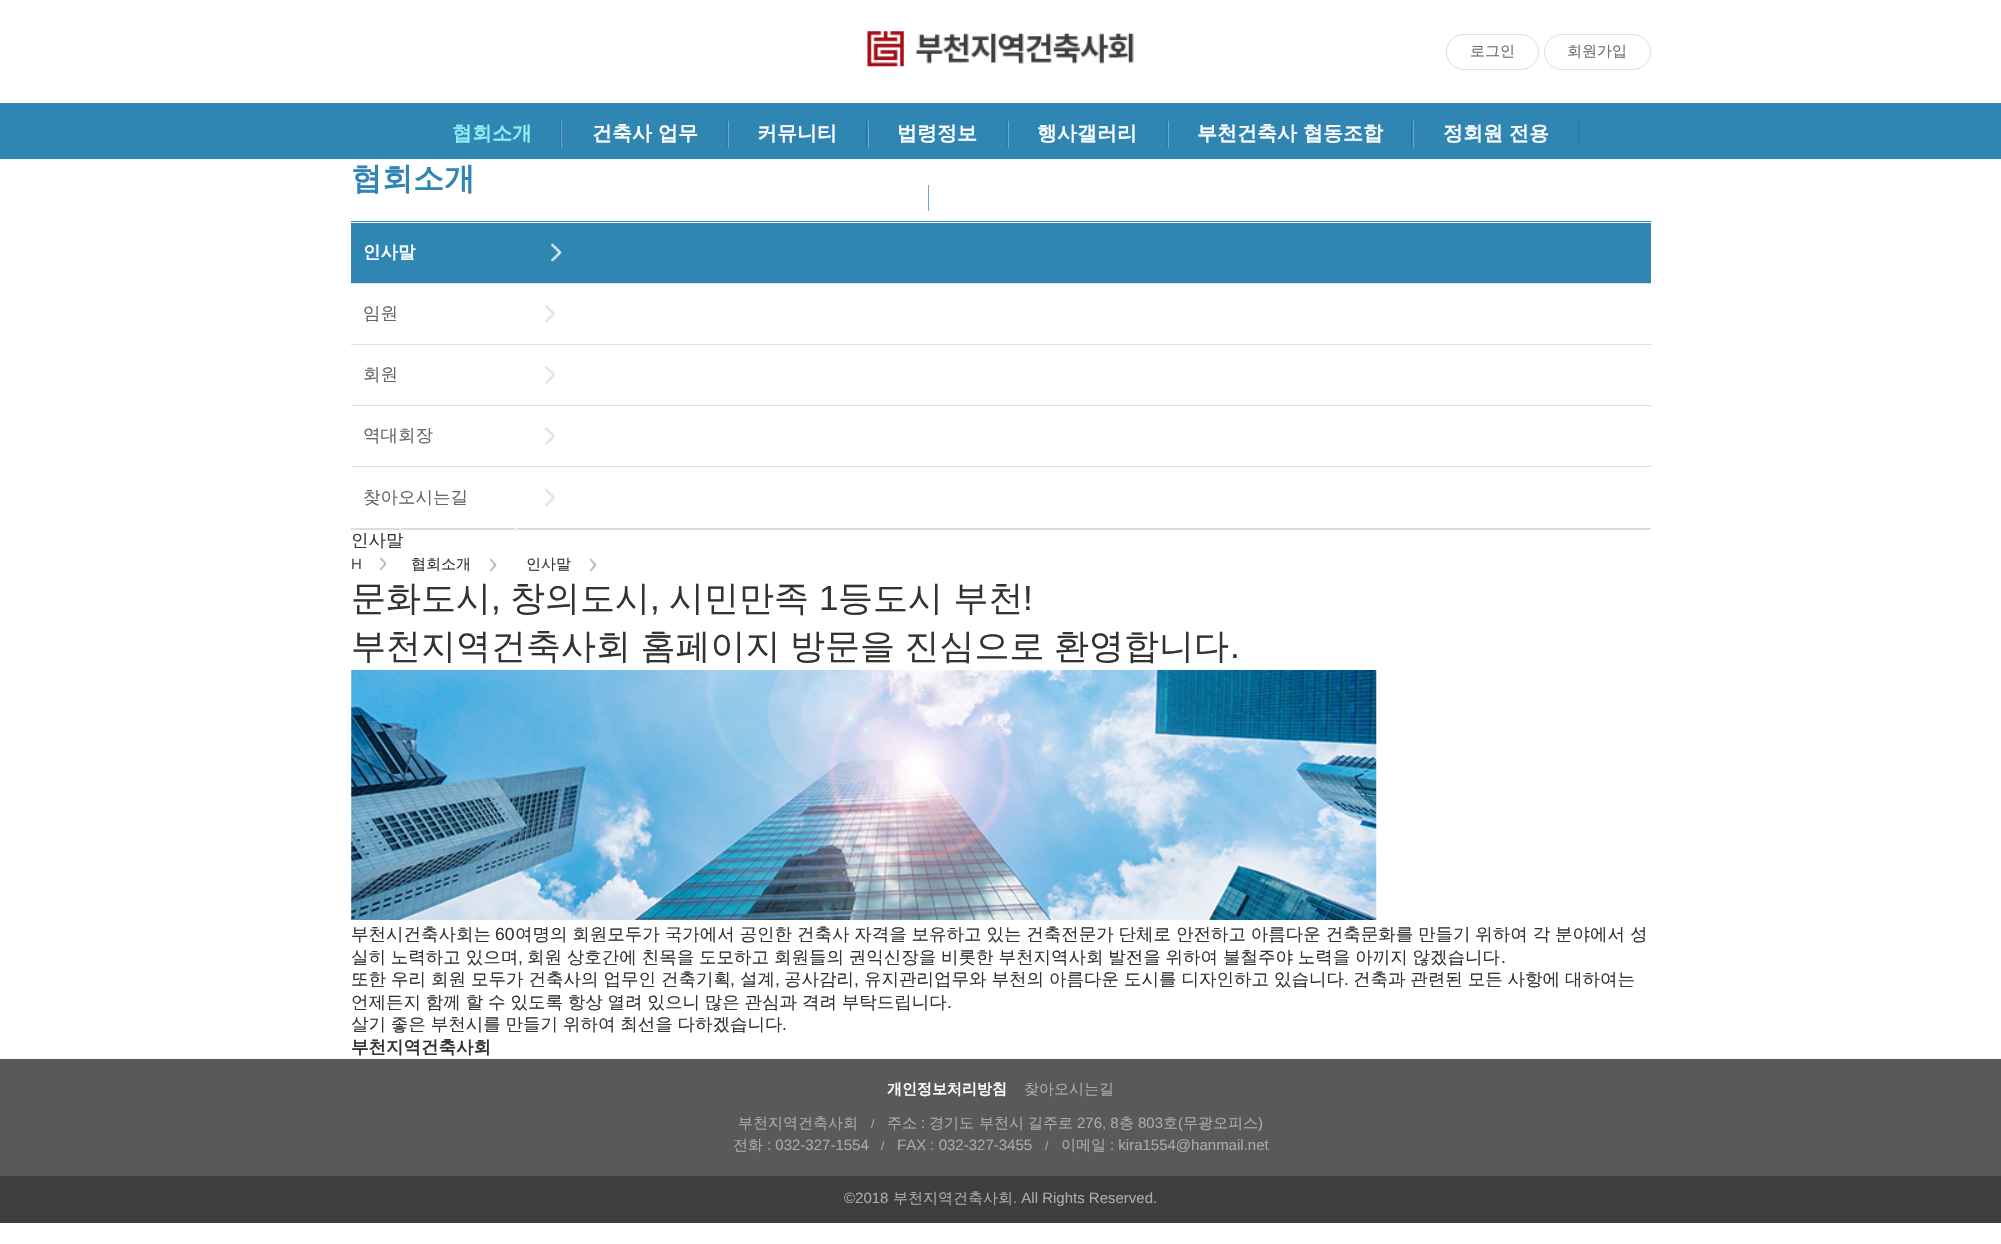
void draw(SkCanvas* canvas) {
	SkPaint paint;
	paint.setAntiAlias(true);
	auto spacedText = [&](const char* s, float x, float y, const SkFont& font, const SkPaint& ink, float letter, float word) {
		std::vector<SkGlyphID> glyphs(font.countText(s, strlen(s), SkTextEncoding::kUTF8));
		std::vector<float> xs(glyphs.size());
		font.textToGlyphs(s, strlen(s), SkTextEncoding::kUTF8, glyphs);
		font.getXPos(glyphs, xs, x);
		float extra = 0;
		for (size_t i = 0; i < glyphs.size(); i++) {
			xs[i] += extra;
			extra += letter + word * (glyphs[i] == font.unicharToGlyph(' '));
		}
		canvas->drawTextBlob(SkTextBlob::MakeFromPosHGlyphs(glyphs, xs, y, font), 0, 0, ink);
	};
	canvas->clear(0xffffffff);
	canvas->drawImageRect(SkImages::DeferredFromEncodedData(SkData::MakeFromFileName("img1.png")), SkRect::MakeXYWH(867, 31, 267, 36), SkSamplingOptions());
	paint.setStroke(true);
	paint.setStrokeWidth(1);
	paint.setColor(0xffdfdfdf);
	canvas->drawRoundRect(SkRect::MakeXYWH(1446.5, 34.5, 92, 35), 17.5, 17.5, paint);
	SkFont f1(fontMgr->matchFamilyStyle("WenQuanYi Zen Hei", SkFontStyle(500, SkFontStyle::kNormal_Width, SkFontStyle::kUpright_Slant)), 15);
	f1.setSubpixel(true);
	paint.setStroke(false);
	paint.setColor(0xff6d6d6d);
	canvas->drawString("로그인", 1470, 56, f1, paint);
	paint.setStroke(true);
	paint.setColor(0xffdfdfdf);
	canvas->drawRoundRect(SkRect::MakeXYWH(1544.5, 34.5, 106, 35), 17.5, 17.5, paint);
	paint.setStroke(false);
	paint.setColor(0xff6d6d6d);
	canvas->drawString("회원가입", 1567, 56, f1, paint);
	paint.setColor(0xff3086b3);
	canvas->drawRect(SkRect::MakeXYWH(0, 103, 2001, 56), paint);
	paint.setColor(0xff2477a2);
	canvas->drawRect(SkRect::MakeXYWH(560, 121, 1, 27), paint);
	SkFont f2(fontMgr->matchFamilyStyle("WenQuanYi Zen Hei", SkFontStyle::Bold()), 20);
	f2.setSubpixel(true);
	paint.setColor(0xff8aeff3);
	canvas->drawString("협회소개", 452, 140, f2, paint);
	paint.setColor(0xff2477a2);
	canvas->drawRect(SkRect::MakeXYWH(726, 121, 1, 27), paint);
	paint.setColor(0xff6fa7c4);
	canvas->drawRect(SkRect::MakeXYWH(561, 121, 1, 27), paint);
	paint.setColor(0xffffffff);
	canvas->drawString("건축사 업무", 592, 140, f2, paint);
	paint.setColor(0xff2477a2);
	canvas->drawRect(SkRect::MakeXYWH(866, 121, 1, 27), paint);
	paint.setColor(0xff6fa7c4);
	canvas->drawRect(SkRect::MakeXYWH(728, 121, 1, 27), paint);
	paint.setColor(0xffffffff);
	canvas->drawString("커뮤니티", 757, 140, f2, paint);
	paint.setColor(0xff2477a2);
	canvas->drawRect(SkRect::MakeXYWH(1006, 121, 1, 27), paint);
	paint.setColor(0xff6fa7c4);
	canvas->drawRect(SkRect::MakeXYWH(868, 121, 1, 27), paint);
	paint.setColor(0xffffffff);
	canvas->drawString("법령정보", 897, 140, f2, paint);
	paint.setColor(0xff2477a2);
	canvas->drawRect(SkRect::MakeXYWH(1166, 121, 1, 27), paint);
	paint.setColor(0xff6fa7c4);
	canvas->drawRect(SkRect::MakeXYWH(1008, 121, 1, 27), paint);
	paint.setColor(0xffffffff);
	canvas->drawString("행사갤러리", 1037, 140, f2, paint);
	paint.setColor(0xff2477a2);
	canvas->drawRect(SkRect::MakeXYWH(1411, 121, 1, 27), paint);
	paint.setColor(0xff6fa7c4);
	canvas->drawRect(SkRect::MakeXYWH(1168, 121, 1, 27), paint);
	paint.setColor(0xffffffff);
	canvas->drawString("부천건축사 협동조합", 1197, 140, f2, paint);
	paint.setColor(0xff2477a2);
	canvas->drawRect(SkRect::MakeXYWH(1578, 121, 1, 27), paint);
	paint.setColor(0xff6fa7c4);
	canvas->drawRect(SkRect::MakeXYWH(1413, 121, 1, 27), paint);
	paint.setColor(0xffffffff);
	canvas->drawString("정회원 전용", 1443, 140, f2, paint);
	paint.setColor(0xff6fa7c4);
	canvas->drawRect(SkRect::MakeXYWH(928, 185, 1, 26), paint);
	paint.setColor(0xff3086b3);
	canvas->drawRect(SkRect::MakeXYWH(351, 221, 1300, 1), paint);
	SkFont f3(fontMgr->matchFamilyStyle("WenQuanYi Zen Hei", SkFontStyle::Bold()), 31);
	f3.setSubpixel(true);
	canvas->drawString("협회소개", 351, 189, f3, paint);
	paint.setColor(0xffdddddd);
	canvas->drawRect(SkRect::MakeXYWH(351, 528, 1300, 2), paint);
	canvas->drawRect(SkRect::MakeXYWH(351, 283, 1300, 1), paint);
	paint.setColor(0xff3086b3);
	canvas->drawRect(SkRect::MakeXYWH(351, 223, 1300, 60), paint);
	canvas->drawImageRect(SkImages::DeferredFromEncodedData(SkData::MakeFromFileName("img2.png")), SkRect::MakeXYWH(551, 243, 11, 19), SkSamplingOptions());
	SkFont f4(fontMgr->matchFamilyStyle("WenQuanYi Zen Hei", SkFontStyle::Bold()), 17.5);
	f4.setSubpixel(true);
	paint.setColor(0xffffffff);
	canvas->drawString("인사말", 363, 258, f4, paint);
	paint.setColor(0xffdddddd);
	canvas->drawRect(SkRect::MakeXYWH(351, 344, 1300, 1), paint);
	canvas->drawImageRect(SkImages::DeferredFromEncodedData(SkData::MakeFromFileName("img3.png")), SkRect::MakeXYWH(545, 305, 10, 18), SkSamplingOptions());
	SkFont f5(fontMgr->matchFamilyStyle("WenQuanYi Zen Hei", SkFontStyle(500, SkFontStyle::kNormal_Width, SkFontStyle::kUpright_Slant)), 17.5);
	f5.setSubpixel(true);
	paint.setColor(0xff666666);
	canvas->drawString("임원", 363, 319, f5, paint);
	paint.setColor(0xffdddddd);
	canvas->drawRect(SkRect::MakeXYWH(351, 405, 1300, 1), paint);
	canvas->drawImageRect(SkImages::DeferredFromEncodedData(SkData::MakeFromFileName("img4.png")), SkRect::MakeXYWH(545, 366, 10, 18), SkSamplingOptions());
	paint.setColor(0xff666666);
	canvas->drawString("회원", 363, 380, f5, paint);
	paint.setColor(0xffdddddd);
	canvas->drawRect(SkRect::MakeXYWH(351, 466, 1300, 1), paint);
	canvas->drawImageRect(SkImages::DeferredFromEncodedData(SkData::MakeFromFileName("img5.png")), SkRect::MakeXYWH(545, 427, 10, 18), SkSamplingOptions());
	paint.setColor(0xff666666);
	canvas->drawString("역대회장", 363, 441, f5, paint);
	canvas->drawImageRect(SkImages::DeferredFromEncodedData(SkData::MakeFromFileName("img6.png")), SkRect::MakeXYWH(545, 488, 10, 19), SkSamplingOptions());
	canvas->drawString("찾아오시는길", 363, 503, f5, paint);
	paint.setColor(0xff333333);
	canvas->drawString("인사말", 351, 546, f5, paint);
	canvas->drawImageRect(SkImages::DeferredFromEncodedData(SkData::MakeFromFileName("img7.png")), SkRect::MakeXYWH(380, 557, 7, 13), SkSamplingOptions());
	SkFont f6(fontMgr->matchFamilyStyle("Liberation Sans", SkFontStyle::Normal()), 15);
	f6.setSubpixel(true);
	paint.setColor(0xff555555);
	canvas->drawString("H", 351, 569, f6, paint);
	paint.setColor(0xffefefef);
	canvas->drawRect(SkRect::MakeXYWH(399, 528, 3, 3), paint);
	canvas->drawImageRect(SkImages::DeferredFromEncodedData(SkData::MakeFromFileName("img8.png")), SkRect::MakeXYWH(490, 558, 7, 14), SkSamplingOptions());
	paint.setColor(0xff333333);
	canvas->drawString("협회소개", 411, 569, f1, paint);
	paint.setColor(0xffefefef);
	canvas->drawRect(SkRect::MakeXYWH(514, 528, 3, 3), paint);
	canvas->drawImageRect(SkImages::DeferredFromEncodedData(SkData::MakeFromFileName("img9.png")), SkRect::MakeXYWH(590, 558, 7, 14), SkSamplingOptions());
	paint.setColor(0xff333333);
	canvas->drawString("인사말", 526, 569, f1, paint);
	SkFont f7(fontMgr->matchFamilyStyle("WenQuanYi Zen Hei", SkFontStyle(500, SkFontStyle::kNormal_Width, SkFontStyle::kUpright_Slant)), 35);
	f7.setSubpixel(true);
	canvas->drawString("문화도시", 351, 610, f7, paint);
	SkFont f8(fontMgr->matchFamilyStyle("Liberation Sans", SkFontStyle::Normal()), 35);
	f8.setSubpixel(true);
	canvas->drawString(",", 491, 610, f8, paint);
	canvas->drawString("창의도시", 510, 610, f7, paint);
	canvas->drawString(",", 650, 610, f8, paint);
	canvas->drawString("시민만족", 669, 610, f7, paint);
	canvas->drawString("1", 819, 610, f8, paint);
	canvas->drawString("등도시 부천", 838, 610, f7, paint);
	canvas->drawString("!", 1023, 610, f8, paint);
	spacedText("부천지역건축사회 홈페이지 방문을 진심으로 환영합니다", 351, 658, f7, paint, 0, -1);
	canvas->drawString(".", 1230, 658, f8, paint);
	canvas->drawImageRect(SkImages::DeferredFromEncodedData(SkData::MakeFromFileName("img10.png")), SkRect::MakeXYWH(351, 670, 1026, 250), SkSamplingOptions());
	canvas->drawString("부천시건축사회는", 351, 940, f5, paint);
	SkFont f9(fontMgr->matchFamilyStyle("Liberation Sans", SkFontStyle::Normal()), 17.5);
	f9.setSubpixel(true);
	canvas->drawString("60", 495, 940, f9, paint);
	spacedText("여명의 회원모두가 국가에서 공인한 건축사 자격을 보유하고 있는 건축전문가 단체로 안전하고 아름다운 건축문화를 만들기 위하여 각 분야에서 성", 515, 940, f5, paint, 0, -0.4);
	spacedText("실히 노력하고 있으며", 351, 963, f5, paint, 0, -0.4);
	canvas->drawString(",", 518, 963, f9, paint);
	spacedText("회원 상호간에 친목을 도모하고 회원들의 권익신장을 비롯한 부천지역사회 발전을 위하여 불철주야 노력을 아끼지 않겠습니다", 527, 963, f5, paint, 0, -0.4);
	canvas->drawString(".", 1501, 963, f9, paint);
	spacedText("또한 우리 회원 모두가 건축사의 업무인 건축기획", 351, 985, f5, paint, 0, -0.25);
	canvas->drawString(",", 730, 985, f9, paint);
	canvas->drawString("설계", 740, 985, f5, paint);
	canvas->drawString(",", 775, 985, f9, paint);
	canvas->drawString("공사감리", 784, 985, f5, paint);
	canvas->drawString(",", 854, 985, f9, paint);
	spacedText("유지관리업무와 부천의 아름다운 도시를 디자인하고 있습니다", 864, 985, f5, paint, 0, -0.25);
	canvas->drawString(".", 1344, 985, f9, paint);
	spacedText("건축과 관련된 모든 사항에 대하여는", 1353, 985, f5, paint, 0, -0.4);
	spacedText("언제든지 함께 할 수 있도록 항상 열려 있으니 많은 관심과 격려 부탁드립니다", 351, 1008, f5, paint, 0, -0.4);
	canvas->drawString(".", 947, 1008, f9, paint);
	spacedText("살기 좋은 부천시를 만들기 위하여 최선을 다하겠습니다", 351, 1030, f5, paint, 0, -0.4);
	canvas->drawString(".", 782, 1030, f9, paint);
	canvas->drawString("부천지역건축사회", 351, 1053, f4, paint);
	paint.setColor(0xff595959);
	canvas->drawRect(SkRect::MakeXYWH(0, 1059, 2001, 117), paint);
	SkFont f10(fontMgr->matchFamilyStyle("WenQuanYi Zen Hei", SkFontStyle::Bold()), 15);
	f10.setSubpixel(true);
	paint.setColor(0xffffffff);
	canvas->drawString("개인정보처리방침", 887, 1094, f10, paint);
	paint.setColor(0xffaaaaaa);
	canvas->drawString("찾아오시는길", 1024, 1094, f1, paint);
	canvas->drawString("부천지역건축사회", 738, 1128, f1, paint);
	SkFont f11(fontMgr->matchFamilyStyle("Liberation Sans", SkFontStyle::Normal()), 12);
	f11.setSubpixel(true);
	canvas->drawString("/", 871, 1128, f11, paint);
	canvas->drawString("주소", 887, 1128, f1, paint);
	canvas->drawString(":", 921, 1128, f6, paint);
	canvas->drawString("경기도", 929, 1128, f1, paint);
	canvas->drawString("부천시", 979, 1128, f1, paint);
	canvas->drawString("길주로", 1028, 1128, f1, paint);
	canvas->drawString("276, 8", 1077, 1128, f6, paint);
	canvas->drawString("층", 1119, 1128, f1, paint);
	canvas->drawString("803", 1138, 1128, f6, paint);
	canvas->drawString("호", 1163, 1128, f1, paint);
	canvas->drawString("(", 1178, 1128, f6, paint);
	canvas->drawString("무광오피스", 1183, 1128, f1, paint);
	canvas->drawString(")", 1258, 1128, f6, paint);
	canvas->drawString("전화", 733, 1150, f1, paint);
	canvas->drawString(": 032-327-1554", 767, 1150, f6, paint);
	canvas->drawString("/", 881, 1150, f11, paint);
	canvas->drawString("FAX : 032-327-3455", 897, 1150, f6, paint);
	canvas->drawString("/", 1045, 1150, f11, paint);
	canvas->drawString("이메일", 1061, 1150, f1, paint);
	canvas->drawString(": kira1554@hanmail.net", 1110, 1150, f6, paint);
	paint.setColor(0xff3e3e3e);
	canvas->drawRect(SkRect::MakeXYWH(0, 1176, 2001, 47), paint);
	paint.setColor(0xffaaaaaa);
	canvas->drawString("©2018", 844, 1203, f6, paint);
	canvas->drawString("부천지역건축사회", 893, 1203, f1, paint);
	canvas->drawString(". All Rights Reserved.", 1013, 1203, f6, paint);
}
